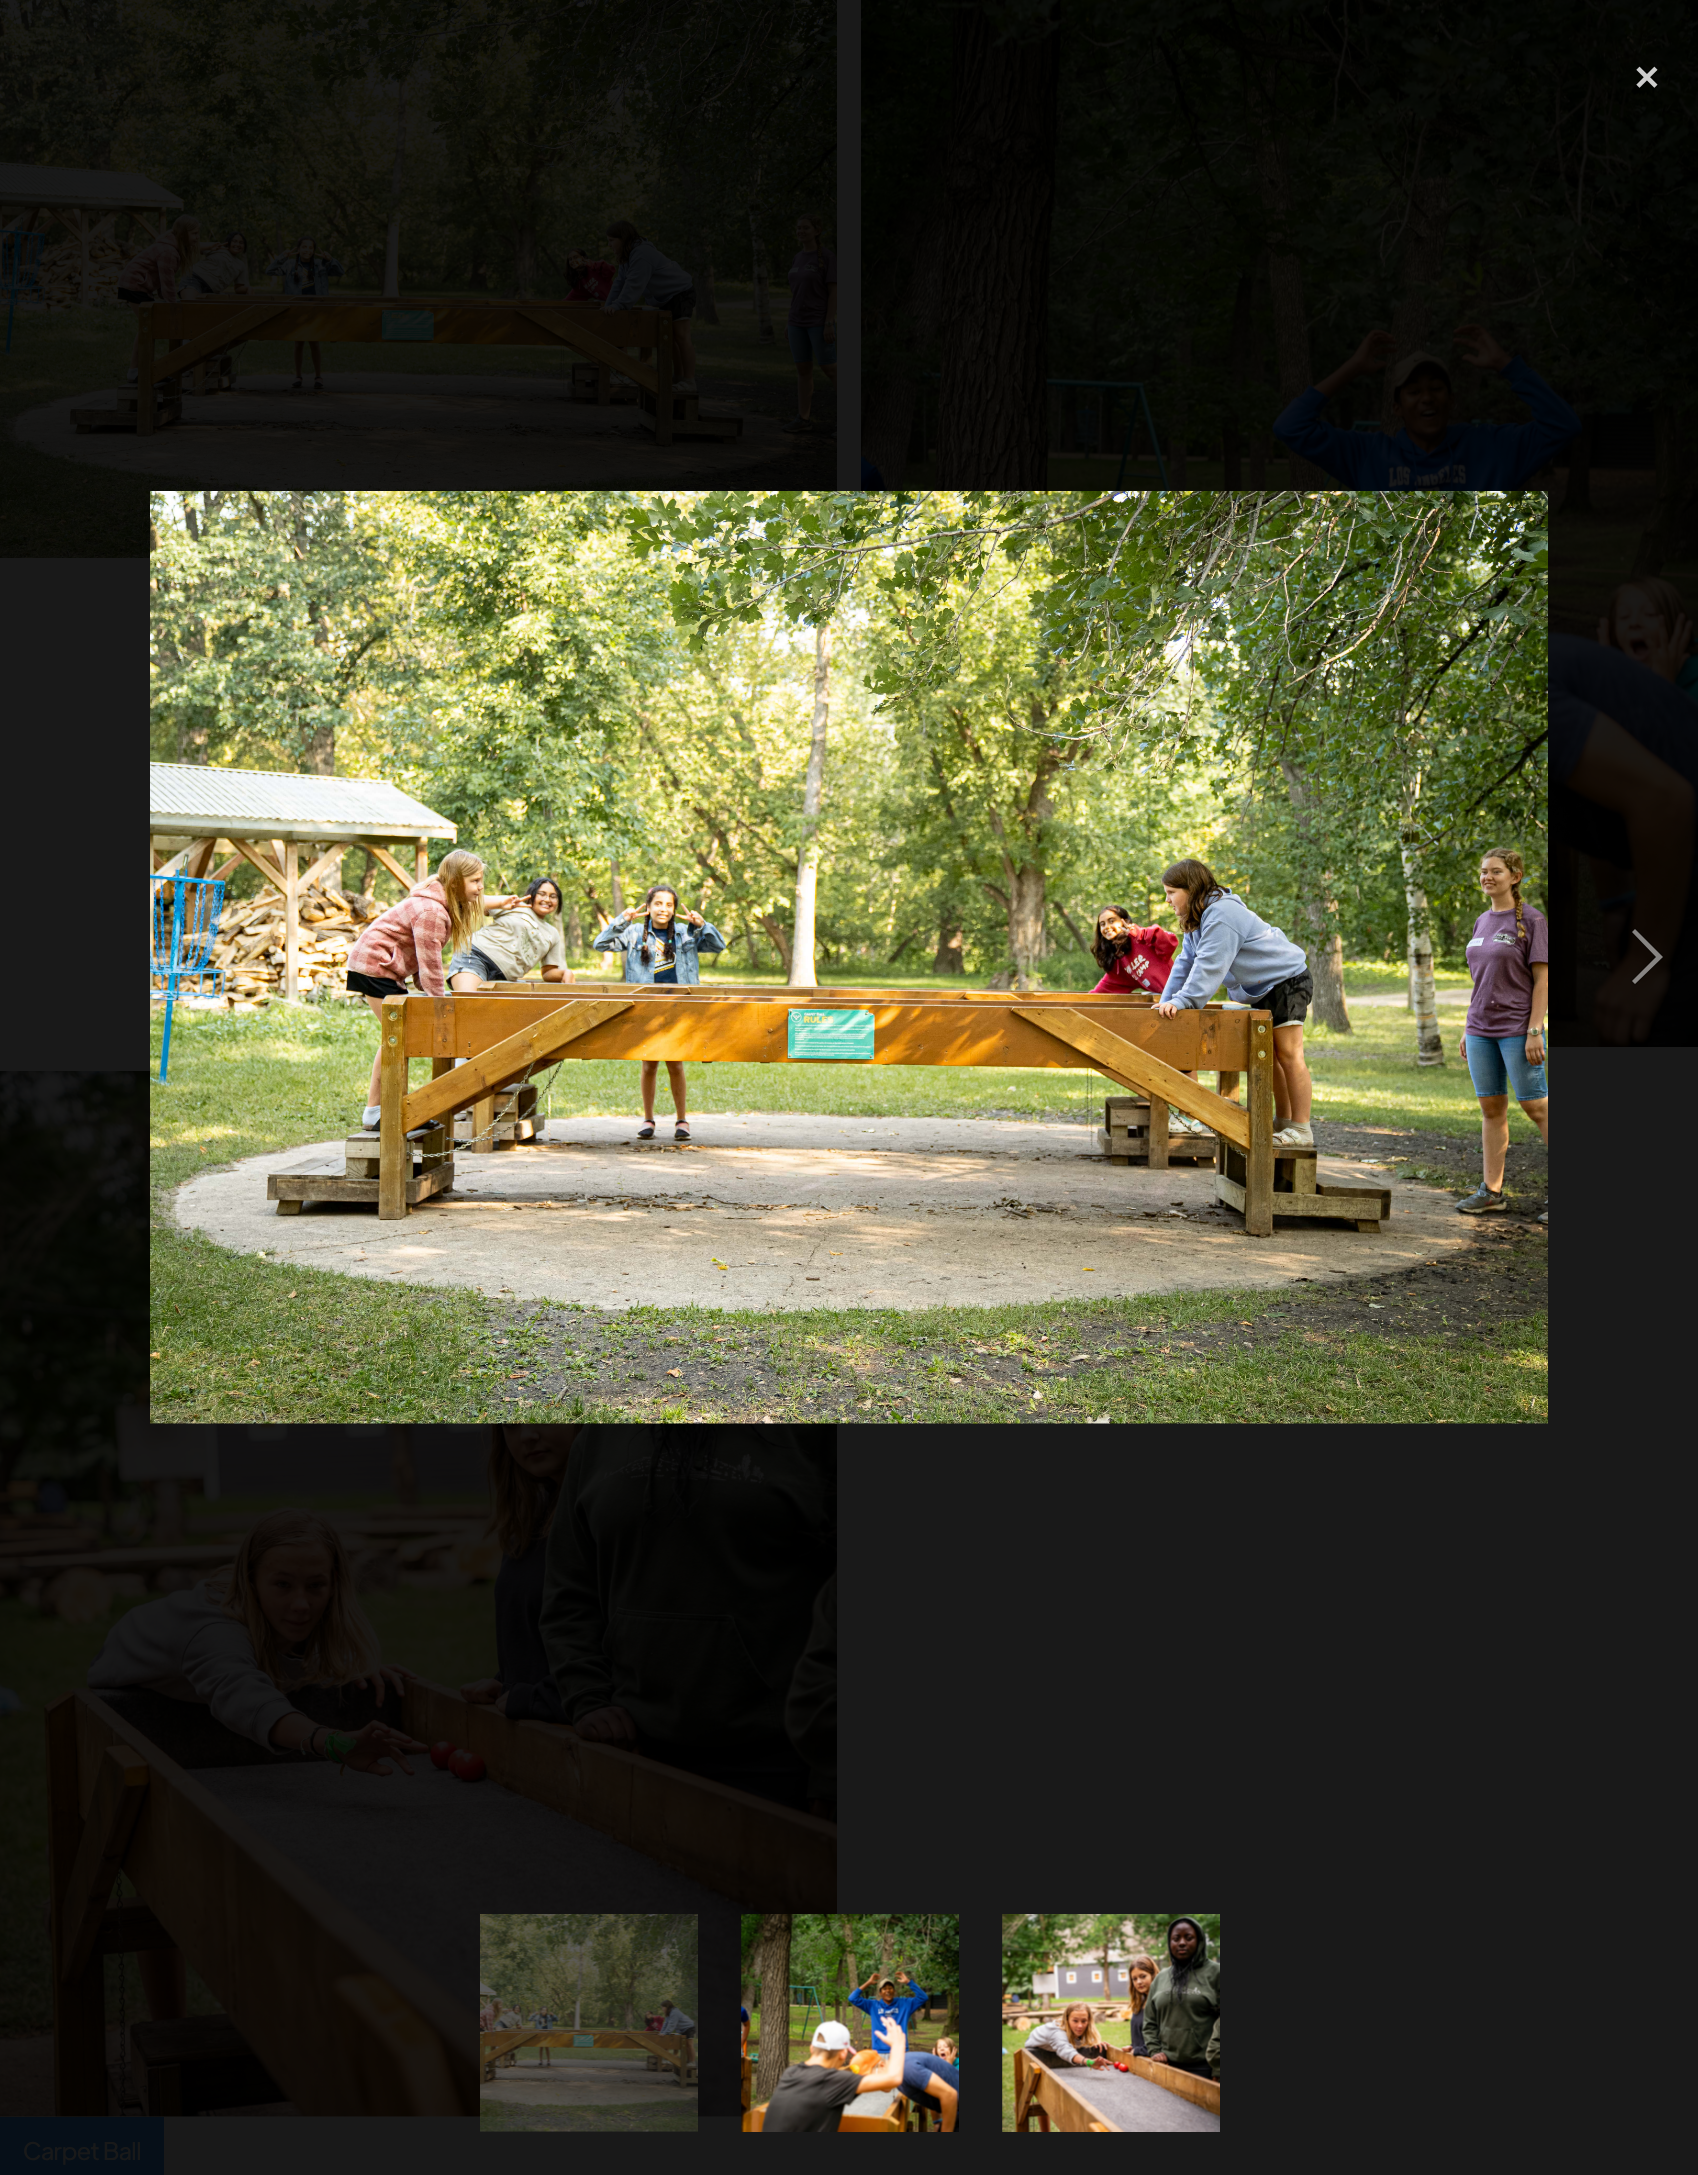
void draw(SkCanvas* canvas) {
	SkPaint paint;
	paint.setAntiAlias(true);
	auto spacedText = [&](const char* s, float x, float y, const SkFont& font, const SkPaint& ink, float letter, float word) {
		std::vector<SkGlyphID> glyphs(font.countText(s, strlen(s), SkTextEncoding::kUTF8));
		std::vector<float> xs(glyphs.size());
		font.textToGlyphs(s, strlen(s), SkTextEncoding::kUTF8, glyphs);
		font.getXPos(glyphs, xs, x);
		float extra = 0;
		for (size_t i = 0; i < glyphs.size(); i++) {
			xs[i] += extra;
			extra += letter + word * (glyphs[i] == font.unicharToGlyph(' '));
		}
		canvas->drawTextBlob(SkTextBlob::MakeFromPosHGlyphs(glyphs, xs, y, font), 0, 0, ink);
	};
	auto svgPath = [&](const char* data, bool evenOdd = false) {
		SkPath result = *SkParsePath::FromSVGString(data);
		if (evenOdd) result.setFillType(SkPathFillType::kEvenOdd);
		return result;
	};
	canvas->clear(0xff191919);
	canvas->drawImageRect(SkImages::DeferredFromEncodedData(SkData::MakeFromFileName("img1.png")), SkRect::MakeXYWH(0, 0, 837, 558), SkSamplingOptions());
	canvas->drawImageRect(SkImages::DeferredFromEncodedData(SkData::MakeFromFileName("img2.png")), SkRect::MakeXYWH(861, 0, 837, 1047), SkSamplingOptions());
	canvas->drawImageRect(SkImages::DeferredFromEncodedData(SkData::MakeFromFileName("img3.png")), SkRect::MakeXYWH(0, 1071, 837, 1046), SkSamplingOptions());
	canvas->drawImageRect(SkImages::DeferredFromEncodedData(SkData::MakeFromFileName("img4.png")), SkRect::MakeXYWH(1636, 66, 22, 22), SkSamplingOptions());
	canvas->drawImageRect(SkImages::DeferredFromEncodedData(SkData::MakeFromFileName("img5.png")), SkRect::MakeXYWH(150, 491, 1398, 933), SkSamplingOptions());
	paint.setColor(0x33000000);
	canvas->drawPath(svgPath("M1635 927L1665 957L1635 986L1630 981L1654 957L1630 932Z"), paint);
	paint.setColor(0x80ffffff);
	canvas->drawPath(svgPath("M1635 929L1663 957L1635 984L1632 981L1656 957L1632 932Z"), paint);
	paint.setColor(0x4d222222);
	canvas->drawRect(SkRect::MakeXYWH(480, 1914, 218, 218), paint);
	canvas->drawImageRect(SkImages::DeferredFromEncodedData(SkData::MakeFromFileName("img6.png")), SkRect::MakeXYWH(480, 1914, 218, 218), SkSamplingOptions());
	canvas->drawImageRect(SkImages::DeferredFromEncodedData(SkData::MakeFromFileName("img7.png")), SkRect::MakeXYWH(741, 1914, 218, 218), SkSamplingOptions());
	canvas->drawImageRect(SkImages::DeferredFromEncodedData(SkData::MakeFromFileName("img8.png")), SkRect::MakeXYWH(1002, 1914, 218, 218), SkSamplingOptions());
	paint.setColor(0xff060f18);
	canvas->drawRect(SkRect::MakeXYWH(0, 2117, 164, 58), paint);
	SkFont f1(fontMgr->matchFamilyStyle("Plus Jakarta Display", SkFontStyle::Normal()), 24);
	f1.setSubpixel(true);
	paint.setColor(0xff191919);
	spacedText("Carpet Ball", 23, 2160, f1, paint, -0.25, 0);
}
